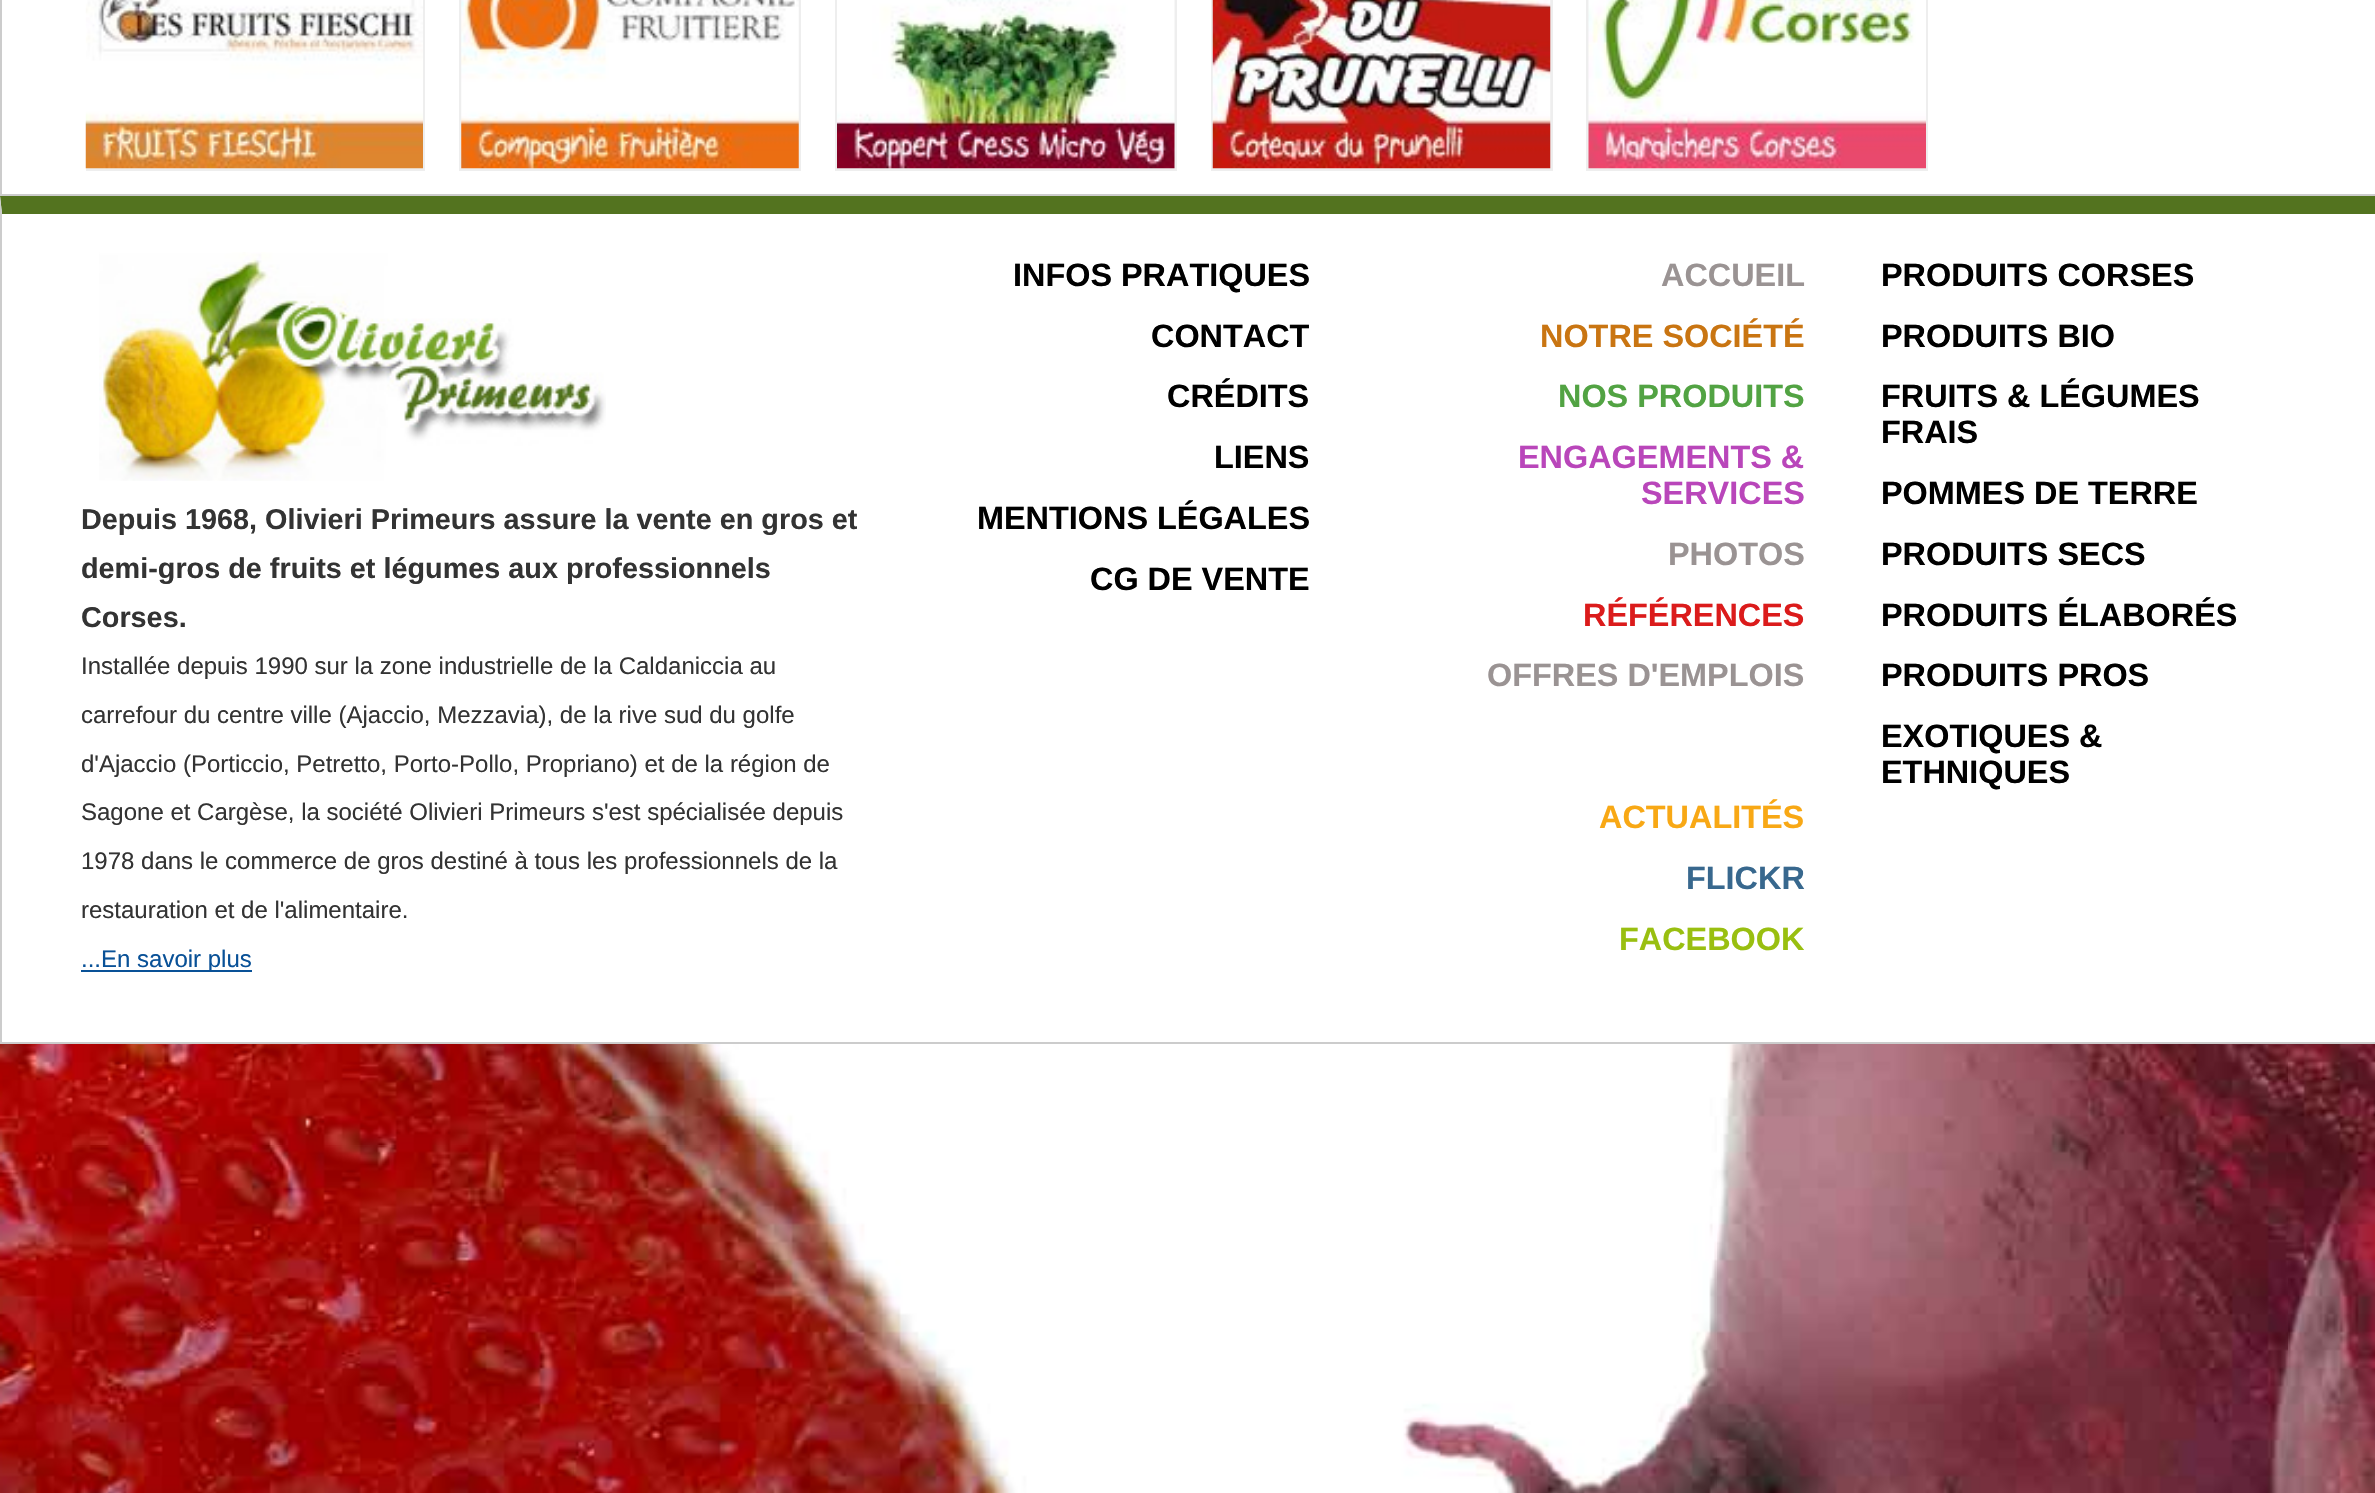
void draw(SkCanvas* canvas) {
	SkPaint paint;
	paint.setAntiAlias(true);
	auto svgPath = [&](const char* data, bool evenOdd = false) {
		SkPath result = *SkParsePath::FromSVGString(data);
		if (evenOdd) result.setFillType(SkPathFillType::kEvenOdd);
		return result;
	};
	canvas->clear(0xffffffff);
	canvas->drawImageRect(SkImages::DeferredFromEncodedData(SkData::MakeFromFileName("img1.png")), SkRect::MakeXYWH(0, 1044, 2375, 449), SkSamplingOptions());
	paint.setColor(0xffcccccc);
	canvas->drawRect(SkRect::MakeXYWH(0, 194, 2375, 2), paint);
	canvas->drawPath(svgPath("M0 196V-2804L2-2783V194Z"), paint);
	paint.setColor(0xffeeeeee);
	canvas->drawRect(SkRect::MakeXYWH(86, 0, 339, 171), paint);
	canvas->drawImageRect(SkImages::DeferredFromEncodedData(SkData::MakeFromFileName("img2.png")), SkRect::MakeXYWH(85, 0, 338, 169), SkSamplingOptions());
	canvas->drawRect(SkRect::MakeXYWH(459, 0, 342, 171), paint);
	canvas->drawImageRect(SkImages::DeferredFromEncodedData(SkData::MakeFromFileName("img3.png")), SkRect::MakeXYWH(461, 0, 338, 169), SkSamplingOptions());
	canvas->drawRect(SkRect::MakeXYWH(835, 0, 342, 171), paint);
	canvas->drawImageRect(SkImages::DeferredFromEncodedData(SkData::MakeFromFileName("img4.png")), SkRect::MakeXYWH(837, 0, 338, 169), SkSamplingOptions());
	canvas->drawRect(SkRect::MakeXYWH(1211, 0, 342, 171), paint);
	canvas->drawImageRect(SkImages::DeferredFromEncodedData(SkData::MakeFromFileName("img5.png")), SkRect::MakeXYWH(1212, 0, 339, 169), SkSamplingOptions());
	canvas->drawRect(SkRect::MakeXYWH(1586, 0, 342, 171), paint);
	canvas->drawImageRect(SkImages::DeferredFromEncodedData(SkData::MakeFromFileName("img6.png")), SkRect::MakeXYWH(1588, 0, 338, 169), SkSamplingOptions());
	paint.setColor(0xff53731f);
	canvas->drawPath(svgPath("M0 196H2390L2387 214H2Z"), paint);
	paint.setColor(0xffcccccc);
	canvas->drawRect(SkRect::MakeXYWH(0, 1042, 2375, 2), paint);
	canvas->drawPath(svgPath("M0 1044V196L2 214V1042Z"), paint);
	canvas->drawImageRect(SkImages::DeferredFromEncodedData(SkData::MakeFromFileName("img7.png")), SkRect::MakeXYWH(99, 252, 507, 229), SkSamplingOptions());
	SkFont f1(fontMgr->matchFamilyStyle("Liberation Sans", SkFontStyle::Bold()), 28.8);
	f1.setSubpixel(true);
	paint.setColor(0xff333333);
	canvas->drawString("Depuis 1968, Olivieri Primeurs assure la vente en gros et", 81, 529, f1, paint);
	canvas->drawString("demi-gros de fruits et légumes aux professionnels", 81, 578, f1, paint);
	canvas->drawString("Corses.", 81, 627, f1, paint);
	SkFont f2(fontMgr->matchFamilyStyle("Liberation Sans", SkFontStyle::Normal()), 24);
	f2.setSubpixel(true);
	canvas->drawString("Installée depuis 1990 sur la zone industrielle de la Caldaniccia au", 81, 674, f2, paint);
	canvas->drawString("carrefour du centre ville (Ajaccio, Mezzavia), de la rive sud du golfe", 81, 723, f2, paint);
	canvas->drawString("d'Ajaccio (Porticcio, Petretto, Porto-Pollo, Propriano) et de la région de", 81, 772, f2, paint);
	canvas->drawString("Sagone et Cargèse, la société Olivieri Primeurs s'est spécialisée depuis", 81, 820, f2, paint);
	canvas->drawString("1978 dans le commerce de gros destiné à tous les professionnels de la", 81, 869, f2, paint);
	canvas->drawString("restauration et de l'alimentaire.", 81, 918, f2, paint);
	paint.setColor(0xff095197);
	canvas->drawRect(SkRect::MakeXYWH(81, 970, 171, 2), paint);
	canvas->drawString("...En savoir plus", 81, 967, f2, paint);
	SkFont f3(fontMgr->matchFamilyStyle("Liberation Sans", SkFontStyle::Bold()), 32.4);
	f3.setSubpixel(true);
	paint.setColor(0xff000000);
	canvas->drawString("INFOS PRATIQUES", 1013, 286, f3, paint);
	canvas->drawString("CONTACT", 1151, 347, f3, paint);
	canvas->drawString("CRÉDITS", 1167, 407, f3, paint);
	canvas->drawString("LIENS", 1214, 468, f3, paint);
	canvas->drawString("MENTIONS LÉGALES", 977, 529, f3, paint);
	canvas->drawString("CG DE VENTE", 1090, 590, f3, paint);
	paint.setColor(0xff9a9393);
	canvas->drawString("ACCUEIL", 1661, 286, f3, paint);
	paint.setColor(0xffc97512);
	canvas->drawString("NOTRE SOCIÉTÉ", 1540, 347, f3, paint);
	paint.setColor(0xff52a343);
	canvas->drawString("NOS PRODUITS", 1558, 407, f3, paint);
	paint.setColor(0xffb946ba);
	canvas->drawString("ENGAGEMENTS &", 1518, 468, f3, paint);
	canvas->drawString("SERVICES", 1641, 504, f3, paint);
	paint.setColor(0xff9a9393);
	canvas->drawString("PHOTOS", 1668, 565, f3, paint);
	paint.setColor(0xffdb1b1b);
	canvas->drawString("RÉFÉRENCES", 1583, 626, f3, paint);
	paint.setColor(0xff9a9393);
	canvas->drawString("OFFRES D'EMPLOIS", 1487, 686, f3, paint);
	paint.setColor(0xfff8a815);
	canvas->drawString("ACTUALITÉS", 1599, 828, f3, paint);
	paint.setColor(0xff38688e);
	canvas->drawString("FLICKR", 1686, 889, f3, paint);
	paint.setColor(0xff99bf10);
	canvas->drawString("FACEBOOK", 1619, 950, f3, paint);
	paint.setColor(0xff000000);
	canvas->drawString("PRODUITS CORSES", 1881, 286, f3, paint);
	canvas->drawString("PRODUITS BIO", 1881, 347, f3, paint);
	canvas->drawString("FRUITS & LÉGUMES", 1881, 407, f3, paint);
	canvas->drawString("FRAIS", 1881, 443, f3, paint);
	canvas->drawString("POMMES DE TERRE", 1881, 504, f3, paint);
	canvas->drawString("PRODUITS SECS", 1881, 565, f3, paint);
	canvas->drawString("PRODUITS ÉLABORÉS", 1881, 626, f3, paint);
	canvas->drawString("PRODUITS PROS", 1881, 686, f3, paint);
	canvas->drawString("EXOTIQUES &", 1881, 747, f3, paint);
	canvas->drawString("ETHNIQUES", 1881, 783, f3, paint);
}
